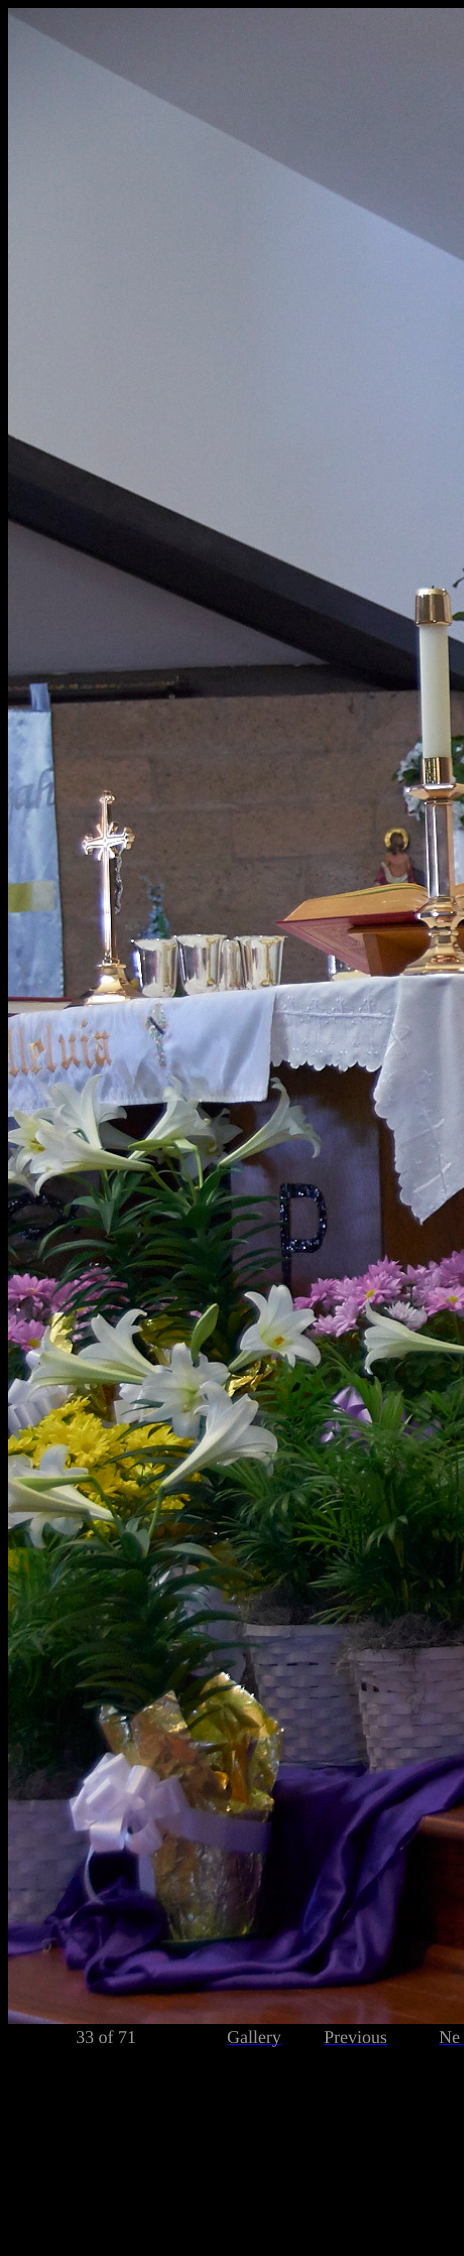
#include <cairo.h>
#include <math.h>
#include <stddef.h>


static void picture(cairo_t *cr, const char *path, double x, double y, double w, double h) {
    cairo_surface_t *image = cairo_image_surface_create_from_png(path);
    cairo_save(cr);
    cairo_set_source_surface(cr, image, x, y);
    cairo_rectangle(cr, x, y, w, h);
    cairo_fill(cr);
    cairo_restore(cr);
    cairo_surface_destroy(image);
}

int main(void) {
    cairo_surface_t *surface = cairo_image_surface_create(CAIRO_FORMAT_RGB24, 464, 2256);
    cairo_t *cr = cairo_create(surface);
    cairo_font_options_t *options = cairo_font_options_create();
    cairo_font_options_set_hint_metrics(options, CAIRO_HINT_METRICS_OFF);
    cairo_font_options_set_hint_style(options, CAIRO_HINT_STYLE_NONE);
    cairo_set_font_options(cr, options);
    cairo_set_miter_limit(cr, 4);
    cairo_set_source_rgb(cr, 0, 0, 0);
    cairo_paint(cr);
    picture(cr, "img1.png", 8, 8, 456, 2016);
    cairo_select_font_face(cr, "Liberation Serif", CAIRO_FONT_SLANT_NORMAL, CAIRO_FONT_WEIGHT_NORMAL);
    cairo_set_font_size(cr, 18);
    cairo_set_source_rgb(cr, 0.6, 0.6, 0.6);
    cairo_move_to(cr, 76, 2043);
    cairo_show_text(cr, "33 of 71");
    cairo_set_source_rgb(cr, 0, 0, 0.933);
    cairo_rectangle(cr, 227, 2044, 54, 1);
    cairo_fill(cr);
    cairo_set_source_rgb(cr, 0.6, 0.6, 0.6);
    cairo_move_to(cr, 227, 2043);
    cairo_show_text(cr, "Gallery");
    cairo_move_to(cr, 324, 2043);
    cairo_show_text(cr, "Previous");
    cairo_set_source_rgb(cr, 0, 0, 0.933);
    cairo_rectangle(cr, 324, 2044, 63, 1);
    cairo_fill(cr);
    cairo_set_source_rgb(cr, 0.6, 0.6, 0.6);
    cairo_move_to(cr, 439, 2043);
    cairo_show_text(cr, "Ne");
    cairo_set_source_rgb(cr, 0, 0, 0.933);
    cairo_rectangle(cr, 439, 2044, 25, 1);
    cairo_fill(cr);
    cairo_surface_write_to_png(surface, "page.png");
    cairo_font_options_destroy(options);
    cairo_destroy(cr);
    cairo_surface_destroy(surface);
    return 0;
}
